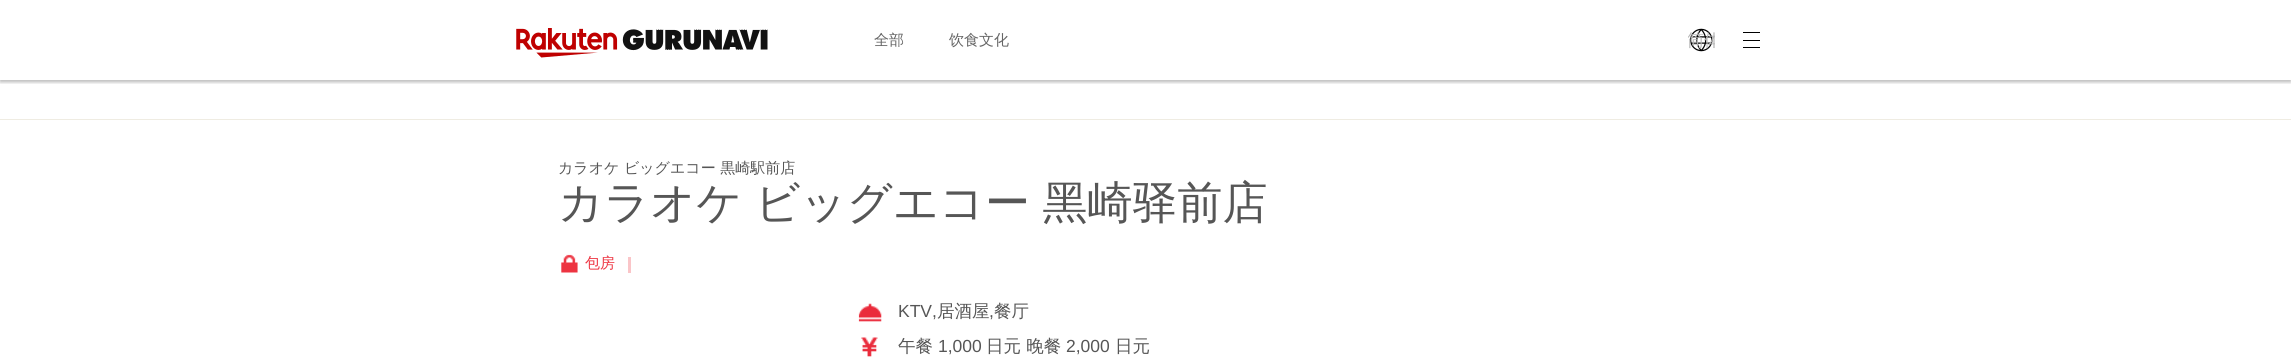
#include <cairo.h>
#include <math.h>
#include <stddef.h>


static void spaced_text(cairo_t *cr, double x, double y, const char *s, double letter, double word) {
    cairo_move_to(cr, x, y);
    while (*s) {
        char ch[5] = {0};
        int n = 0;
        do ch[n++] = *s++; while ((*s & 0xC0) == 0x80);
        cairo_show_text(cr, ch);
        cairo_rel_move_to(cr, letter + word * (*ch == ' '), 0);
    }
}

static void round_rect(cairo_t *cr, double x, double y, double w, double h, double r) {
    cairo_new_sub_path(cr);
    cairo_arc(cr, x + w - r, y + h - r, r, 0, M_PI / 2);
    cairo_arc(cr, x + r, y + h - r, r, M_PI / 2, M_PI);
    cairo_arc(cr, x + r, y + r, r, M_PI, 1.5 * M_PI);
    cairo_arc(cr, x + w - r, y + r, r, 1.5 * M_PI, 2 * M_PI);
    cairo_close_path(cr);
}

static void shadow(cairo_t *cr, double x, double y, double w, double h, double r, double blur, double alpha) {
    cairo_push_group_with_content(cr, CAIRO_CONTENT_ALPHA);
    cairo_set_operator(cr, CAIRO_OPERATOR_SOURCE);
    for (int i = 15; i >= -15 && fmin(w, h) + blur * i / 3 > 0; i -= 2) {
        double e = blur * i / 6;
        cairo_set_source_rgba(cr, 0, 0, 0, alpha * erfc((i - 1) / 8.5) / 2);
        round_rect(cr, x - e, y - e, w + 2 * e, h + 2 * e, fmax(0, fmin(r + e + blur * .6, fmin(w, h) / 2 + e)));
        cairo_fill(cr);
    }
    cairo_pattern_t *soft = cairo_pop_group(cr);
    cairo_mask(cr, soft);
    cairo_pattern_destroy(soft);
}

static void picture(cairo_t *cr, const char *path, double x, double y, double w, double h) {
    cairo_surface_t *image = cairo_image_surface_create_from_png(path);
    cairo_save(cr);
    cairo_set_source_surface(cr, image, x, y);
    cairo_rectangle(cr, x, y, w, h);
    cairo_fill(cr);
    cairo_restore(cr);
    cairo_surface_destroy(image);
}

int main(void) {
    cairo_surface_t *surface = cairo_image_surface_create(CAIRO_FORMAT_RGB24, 2291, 361);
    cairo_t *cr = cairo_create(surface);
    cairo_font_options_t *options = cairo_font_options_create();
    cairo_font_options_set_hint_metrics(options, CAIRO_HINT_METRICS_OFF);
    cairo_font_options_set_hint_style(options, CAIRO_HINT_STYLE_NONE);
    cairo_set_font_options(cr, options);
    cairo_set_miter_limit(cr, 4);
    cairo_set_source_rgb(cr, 1, 1, 1);
    cairo_paint(cr);
    cairo_save(cr);
    cairo_rectangle(cr, 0, 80, 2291, 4);
    cairo_clip(cr);
    cairo_set_source_rgb(cr, 0, 0, 0);
    shadow(cr, 0, 1, 2291, 80, 0, 2, 0.2);
    shadow(cr, 0, 3, 2291, 80, 0, 1, 0.12);
    cairo_restore(cr);
    picture(cr, "img1.png", 516, 28, 252, 30);
    cairo_select_font_face(cr, "WenQuanYi Zen Hei Medium", CAIRO_FONT_SLANT_NORMAL, CAIRO_FONT_WEIGHT_NORMAL);
    cairo_set_font_size(cr, 15);
    cairo_set_source_rgb(cr, 0.4, 0.4, 0.4);
    cairo_move_to(cr, 874, 45);
    cairo_show_text(cr, "全部");
    cairo_move_to(cr, 949, 45);
    cairo_show_text(cr, "饮食文化");
    picture(cr, "img2.png", 1690, 28, 23, 24);
    cairo_save(cr);
    cairo_rectangle(cr, 1688, 31, 27, 19);
    cairo_clip(cr);
    cairo_set_font_size(cr, 17);
    cairo_set_source_rgb(cr, 0.71, 0.71, 0.71);
    cairo_move_to(cr, 1687, 46);
    cairo_show_text(cr, "简体");
    cairo_restore(cr);
    cairo_set_source_rgb(cr, 0, 0, 0);
    cairo_rectangle(cr, 1743, 32, 17, 1);
    cairo_fill(cr);
    cairo_rectangle(cr, 1743, 47, 17, 1);
    cairo_fill(cr);
    cairo_rectangle(cr, 1743, 40, 17, 1);
    cairo_fill(cr);
    cairo_set_source_rgb(cr, 0.937, 0.925, 0.886);
    cairo_rectangle(cr, 0, 119, 2291, 1);
    cairo_fill(cr);
    cairo_set_source_rgb(cr, 0.337, 0.337, 0.337);
    cairo_move_to(cr, 558, 173);
    cairo_show_text(cr, "カラオケ ビッグエコー 黒崎駅前店");
    cairo_set_font_size(cr, 45);
    spaced_text(cr, 558, 218, "カラオケ ビッグエコー 黑崎驿前店", 0, -1);
    picture(cr, "img3.png", 561, 254, 17, 19);
    cairo_set_font_size(cr, 15);
    cairo_set_source_rgb(cr, 0.929, 0.204, 0.255);
    cairo_move_to(cr, 585, 268);
    cairo_show_text(cr, "包房");
    cairo_set_source_rgb(cr, 0.98, 0.773, 0.784);
    cairo_rectangle(cr, 628, 257, 3, 16);
    cairo_fill(cr);
    picture(cr, "img4.png", 858, 303, 24, 19);
    cairo_select_font_face(cr, "Liberation Sans", CAIRO_FONT_SLANT_NORMAL, CAIRO_FONT_WEIGHT_NORMAL);
    cairo_set_font_size(cr, 17.5);
    cairo_set_source_rgb(cr, 0.337, 0.337, 0.337);
    cairo_move_to(cr, 898, 317);
    cairo_show_text(cr, "KTV,");
    cairo_select_font_face(cr, "WenQuanYi Zen Hei Medium", CAIRO_FONT_SLANT_NORMAL, CAIRO_FONT_WEIGHT_NORMAL);
    cairo_move_to(cr, 937, 317);
    cairo_show_text(cr, "居酒屋");
    cairo_select_font_face(cr, "Liberation Sans", CAIRO_FONT_SLANT_NORMAL, CAIRO_FONT_WEIGHT_NORMAL);
    cairo_move_to(cr, 989, 317);
    cairo_show_text(cr, ",");
    cairo_select_font_face(cr, "WenQuanYi Zen Hei Medium", CAIRO_FONT_SLANT_NORMAL, CAIRO_FONT_WEIGHT_NORMAL);
    cairo_move_to(cr, 994, 317);
    cairo_show_text(cr, "餐厅");
    picture(cr, "img5.png", 861, 337, 17, 20);
    cairo_move_to(cr, 898, 352);
    cairo_show_text(cr, "午餐");
    cairo_select_font_face(cr, "Liberation Sans", CAIRO_FONT_SLANT_NORMAL, CAIRO_FONT_WEIGHT_NORMAL);
    cairo_move_to(cr, 938, 352);
    cairo_show_text(cr, "1,000");
    cairo_select_font_face(cr, "WenQuanYi Zen Hei Medium", CAIRO_FONT_SLANT_NORMAL, CAIRO_FONT_WEIGHT_NORMAL);
    cairo_move_to(cr, 986, 352);
    cairo_show_text(cr, "日元 晚餐");
    cairo_select_font_face(cr, "Liberation Sans", CAIRO_FONT_SLANT_NORMAL, CAIRO_FONT_WEIGHT_NORMAL);
    cairo_move_to(cr, 1066, 352);
    cairo_show_text(cr, "2,000");
    cairo_select_font_face(cr, "WenQuanYi Zen Hei Medium", CAIRO_FONT_SLANT_NORMAL, CAIRO_FONT_WEIGHT_NORMAL);
    cairo_move_to(cr, 1115, 352);
    cairo_show_text(cr, "日元");
    cairo_surface_write_to_png(surface, "page.png");
    cairo_font_options_destroy(options);
    cairo_destroy(cr);
    cairo_surface_destroy(surface);
    return 0;
}
